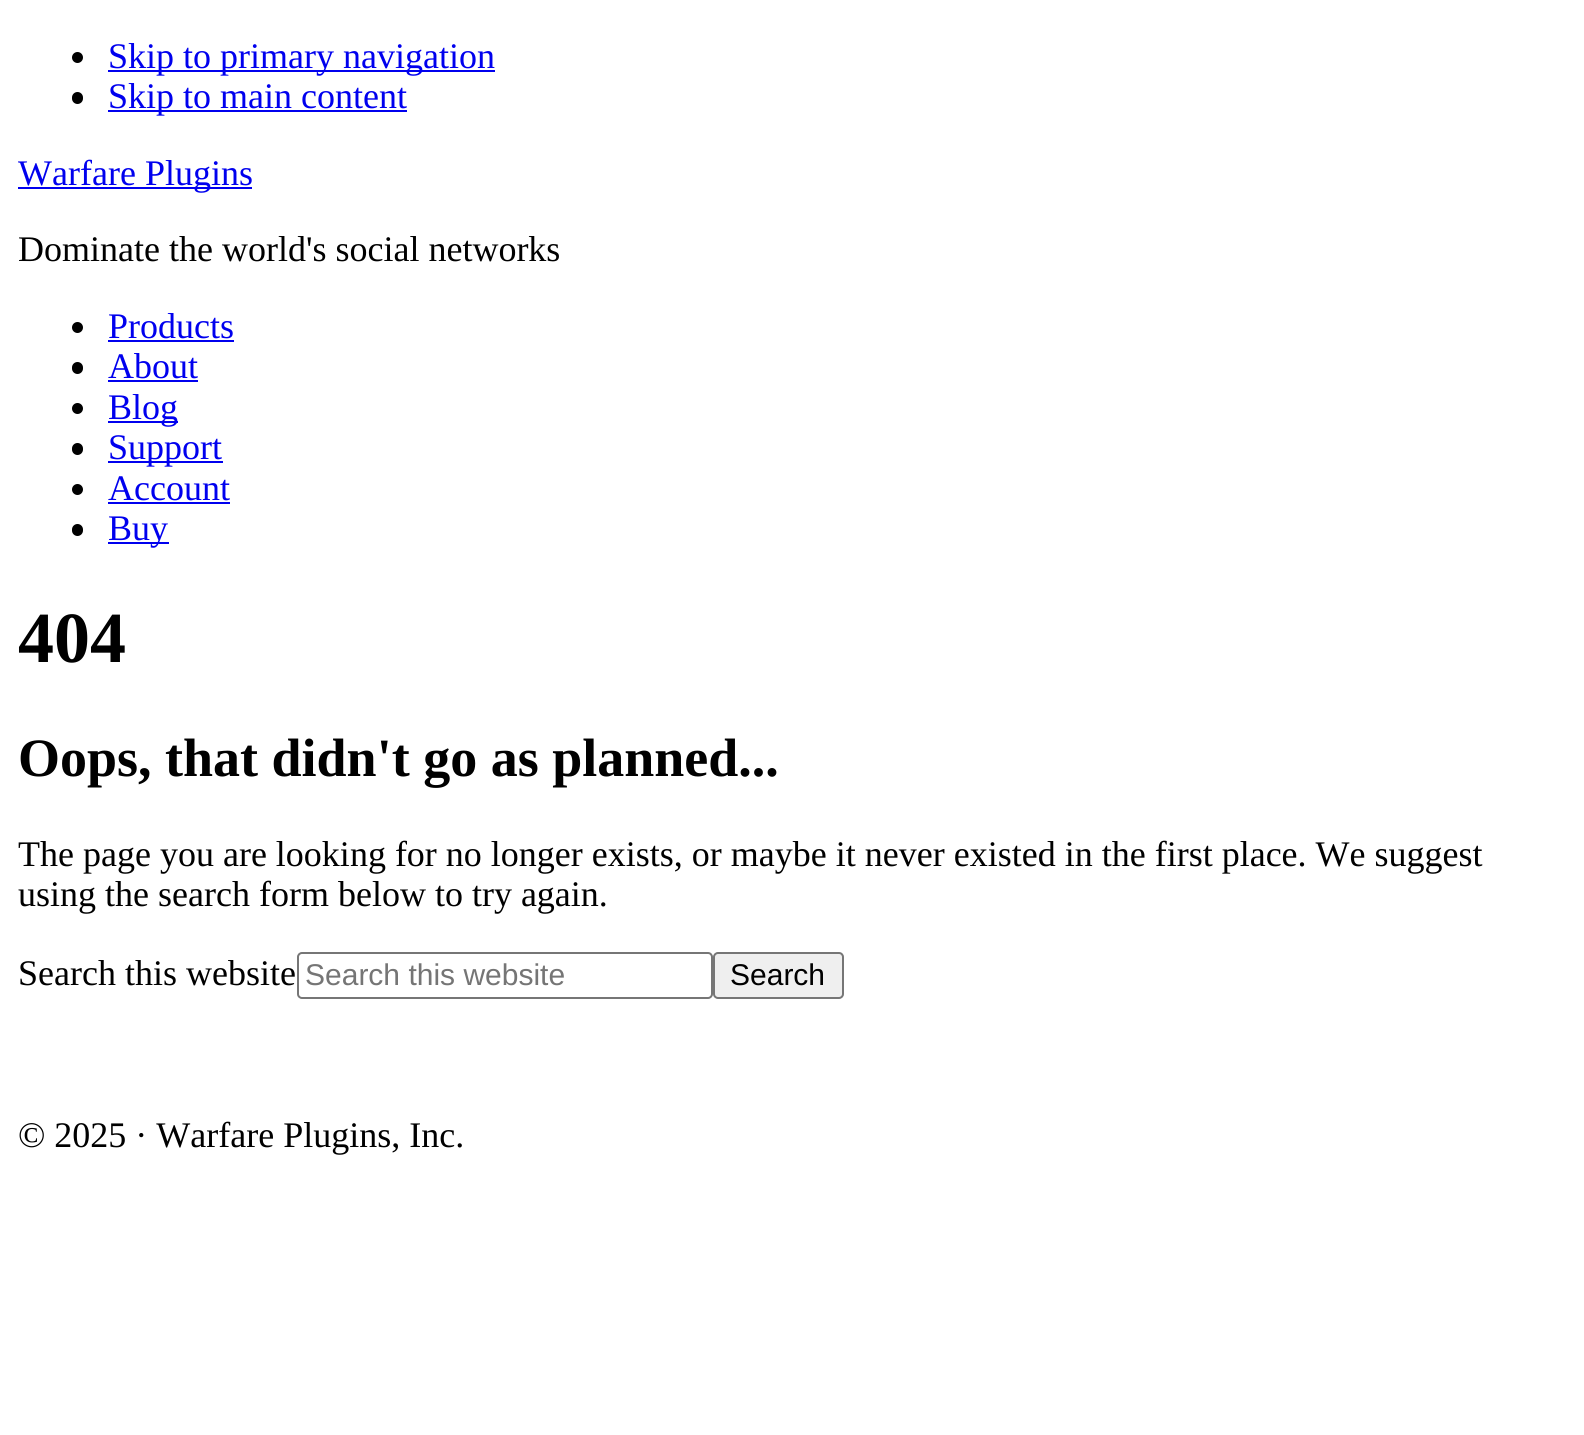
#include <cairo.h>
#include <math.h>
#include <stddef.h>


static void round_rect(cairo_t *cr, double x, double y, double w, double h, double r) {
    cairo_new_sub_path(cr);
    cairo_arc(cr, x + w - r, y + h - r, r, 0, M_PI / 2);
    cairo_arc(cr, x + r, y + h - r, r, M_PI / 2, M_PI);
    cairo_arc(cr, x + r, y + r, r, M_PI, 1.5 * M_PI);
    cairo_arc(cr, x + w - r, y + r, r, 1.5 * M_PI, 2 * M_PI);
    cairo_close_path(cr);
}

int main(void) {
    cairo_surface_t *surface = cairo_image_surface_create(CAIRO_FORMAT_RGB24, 1584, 1435);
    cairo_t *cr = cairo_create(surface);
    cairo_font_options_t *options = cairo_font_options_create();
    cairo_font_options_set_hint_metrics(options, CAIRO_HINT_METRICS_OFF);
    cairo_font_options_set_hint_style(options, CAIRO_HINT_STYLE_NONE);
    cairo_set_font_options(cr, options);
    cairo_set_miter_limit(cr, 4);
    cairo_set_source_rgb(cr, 1, 1, 1);
    cairo_paint(cr);
    cairo_set_source_rgb(cr, 0, 0, 0);
    cairo_arc(cr, 77.5, 57.5, 5.5, 0, 2 * M_PI);
    cairo_fill(cr);
    cairo_set_source_rgb(cr, 0, 0, 0.933);
    cairo_rectangle(cr, 108, 70, 387, 2);
    cairo_fill(cr);
    cairo_select_font_face(cr, "Liberation Serif", CAIRO_FONT_SLANT_NORMAL, CAIRO_FONT_WEIGHT_NORMAL);
    cairo_set_font_size(cr, 36);
    cairo_move_to(cr, 108, 68);
    cairo_show_text(cr, "Skip to primary navigation");
    cairo_set_source_rgb(cr, 0, 0, 0);
    round_rect(cr, 72, 92, 11, 12, 5.5);
    cairo_fill(cr);
    cairo_set_source_rgb(cr, 0, 0, 0.933);
    cairo_rectangle(cr, 108, 110, 299, 2);
    cairo_fill(cr);
    cairo_move_to(cr, 108, 108);
    cairo_show_text(cr, "Skip to main content");
    cairo_rectangle(cr, 18, 187, 234, 2);
    cairo_fill(cr);
    cairo_move_to(cr, 18, 185);
    cairo_show_text(cr, "Warfare Plugins");
    cairo_set_source_rgb(cr, 0, 0, 0);
    cairo_move_to(cr, 18, 261);
    cairo_show_text(cr, "Dominate the world's social networks");
    cairo_new_path(cr);
    cairo_arc(cr, 77.5, 327.5, 5.5, 0, 2 * M_PI);
    cairo_fill(cr);
    cairo_set_source_rgb(cr, 0, 0, 0.933);
    cairo_move_to(cr, 108, 338);
    cairo_show_text(cr, "Products");
    cairo_rectangle(cr, 108, 340, 126, 2);
    cairo_fill(cr);
    cairo_set_source_rgb(cr, 0, 0, 0);
    round_rect(cr, 72, 362, 11, 12, 5.5);
    cairo_fill(cr);
    cairo_set_source_rgb(cr, 0, 0, 0.933);
    cairo_move_to(cr, 108, 378);
    cairo_show_text(cr, "About");
    cairo_rectangle(cr, 108, 380, 90, 2);
    cairo_fill(cr);
    cairo_set_source_rgb(cr, 0, 0, 0);
    cairo_arc(cr, 77.5, 408.5, 5.5, 0, 2 * M_PI);
    cairo_fill(cr);
    cairo_set_source_rgb(cr, 0, 0, 0.933);
    cairo_rectangle(cr, 108, 421, 70, 2);
    cairo_fill(cr);
    cairo_move_to(cr, 108, 419);
    cairo_show_text(cr, "Blog");
    cairo_set_source_rgb(cr, 0, 0, 0);
    round_rect(cr, 72, 443, 11, 12, 5.5);
    cairo_fill(cr);
    cairo_set_source_rgb(cr, 0, 0, 0.933);
    cairo_rectangle(cr, 108, 461, 115, 2);
    cairo_fill(cr);
    cairo_move_to(cr, 108, 459);
    cairo_show_text(cr, "Support");
    cairo_set_source_rgb(cr, 0, 0, 0);
    cairo_new_path(cr);
    cairo_arc(cr, 77.5, 489.5, 5.5, 0, 2 * M_PI);
    cairo_fill(cr);
    cairo_set_source_rgb(cr, 0, 0, 0.933);
    cairo_move_to(cr, 108, 500);
    cairo_show_text(cr, "Account");
    cairo_rectangle(cr, 108, 502, 122, 2);
    cairo_fill(cr);
    cairo_set_source_rgb(cr, 0, 0, 0);
    round_rect(cr, 72, 524, 11, 12, 5.5);
    cairo_fill(cr);
    cairo_set_source_rgb(cr, 0, 0, 0.933);
    cairo_rectangle(cr, 108, 542, 61, 2);
    cairo_fill(cr);
    cairo_move_to(cr, 108, 540);
    cairo_show_text(cr, "Buy");
    cairo_select_font_face(cr, "Liberation Serif", CAIRO_FONT_SLANT_NORMAL, CAIRO_FONT_WEIGHT_BOLD);
    cairo_set_font_size(cr, 72);
    cairo_set_source_rgb(cr, 0, 0, 0);
    cairo_move_to(cr, 18, 662);
    cairo_show_text(cr, "404");
    cairo_set_font_size(cr, 54);
    cairo_move_to(cr, 18, 776);
    cairo_show_text(cr, "Oops, that didn't go as planned...");
    cairo_select_font_face(cr, "Liberation Serif", CAIRO_FONT_SLANT_NORMAL, CAIRO_FONT_WEIGHT_NORMAL);
    cairo_set_font_size(cr, 36);
    cairo_move_to(cr, 18, 866);
    cairo_show_text(cr, "The page you are looking for no longer exists, or maybe it never existed in the first place. We suggest");
    cairo_move_to(cr, 18, 906);
    cairo_show_text(cr, "using the search form below to try again.");
    cairo_move_to(cr, 18, 985);
    cairo_show_text(cr, "Search this website");
    round_rect(cr, 298, 953, 414, 45, 4);
    cairo_set_source_rgb(cr, 0.463, 0.463, 0.463);
    cairo_stroke(cr);
    cairo_select_font_face(cr, "Liberation Sans", CAIRO_FONT_SLANT_NORMAL, CAIRO_FONT_WEIGHT_NORMAL);
    cairo_set_font_size(cr, 30);
    cairo_set_source_rgb(cr, 0.459, 0.459, 0.459);
    cairo_move_to(cr, 305, 985);
    cairo_show_text(cr, "Search this website");
    cairo_set_source_rgb(cr, 0.937, 0.937, 0.937);
    round_rect(cr, 714, 953, 129, 45, 4);
    cairo_fill_preserve(cr);
    cairo_set_source_rgb(cr, 0.463, 0.463, 0.463);
    cairo_stroke(cr);
    cairo_set_source_rgb(cr, 0, 0, 0);
    cairo_move_to(cr, 730, 985);
    cairo_show_text(cr, "Search");
    cairo_select_font_face(cr, "Liberation Serif", CAIRO_FONT_SLANT_NORMAL, CAIRO_FONT_WEIGHT_NORMAL);
    cairo_set_font_size(cr, 36);
    cairo_move_to(cr, 18, 1147);
    cairo_show_text(cr, "© 2025 · Warfare Plugins, Inc.");
    cairo_surface_write_to_png(surface, "page.png");
    cairo_font_options_destroy(options);
    cairo_destroy(cr);
    cairo_surface_destroy(surface);
    return 0;
}
